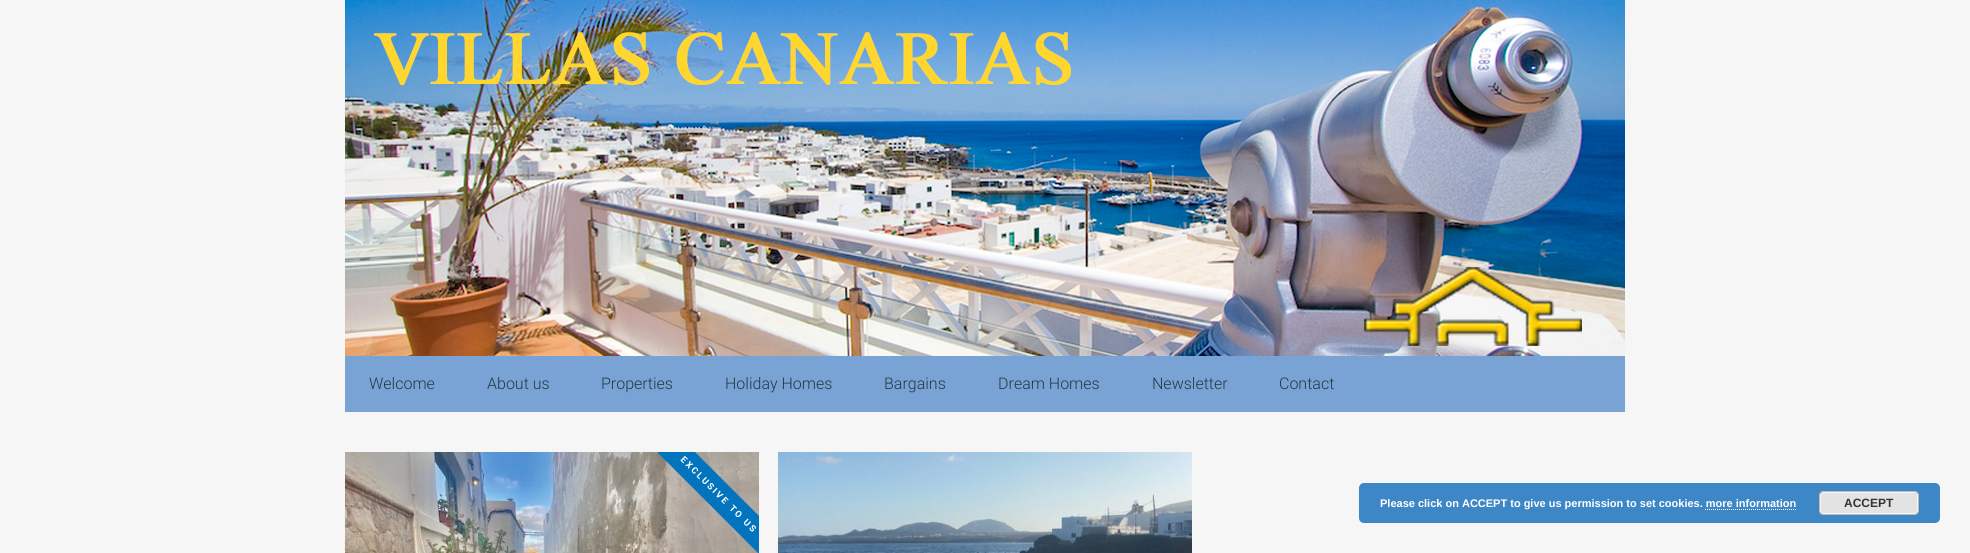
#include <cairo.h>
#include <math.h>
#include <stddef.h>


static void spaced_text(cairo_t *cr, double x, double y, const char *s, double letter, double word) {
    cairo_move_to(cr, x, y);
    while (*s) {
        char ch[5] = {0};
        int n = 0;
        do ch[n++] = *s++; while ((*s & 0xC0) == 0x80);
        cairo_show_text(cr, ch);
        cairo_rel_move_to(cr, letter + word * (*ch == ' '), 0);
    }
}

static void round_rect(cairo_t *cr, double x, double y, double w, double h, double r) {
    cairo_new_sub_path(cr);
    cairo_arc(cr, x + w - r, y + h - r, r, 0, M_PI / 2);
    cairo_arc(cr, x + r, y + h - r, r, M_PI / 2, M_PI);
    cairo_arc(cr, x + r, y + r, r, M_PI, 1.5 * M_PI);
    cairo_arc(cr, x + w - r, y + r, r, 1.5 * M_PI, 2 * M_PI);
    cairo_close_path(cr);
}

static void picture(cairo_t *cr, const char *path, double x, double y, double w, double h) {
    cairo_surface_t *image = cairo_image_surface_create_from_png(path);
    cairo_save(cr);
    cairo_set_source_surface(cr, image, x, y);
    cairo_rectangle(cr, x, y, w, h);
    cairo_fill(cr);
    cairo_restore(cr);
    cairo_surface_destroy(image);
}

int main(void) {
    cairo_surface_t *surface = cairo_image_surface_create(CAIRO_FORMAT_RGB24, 1970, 553);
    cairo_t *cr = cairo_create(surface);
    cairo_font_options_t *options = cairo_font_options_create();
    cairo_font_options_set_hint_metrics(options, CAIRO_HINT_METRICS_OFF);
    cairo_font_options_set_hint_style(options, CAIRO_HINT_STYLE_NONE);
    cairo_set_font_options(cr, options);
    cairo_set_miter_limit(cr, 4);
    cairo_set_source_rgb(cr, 0.961, 0.961, 0.961);
    cairo_paint(cr);
    picture(cr, "img1.png", 345, 0, 1280, 356);
    cairo_set_source_rgb(cr, 0.475, 0.639, 0.835);
    cairo_rectangle(cr, 345, 356, 1280, 56);
    cairo_fill(cr);
    cairo_select_font_face(cr, "Roboto Light", CAIRO_FONT_SLANT_NORMAL, CAIRO_FONT_WEIGHT_NORMAL);
    cairo_set_font_size(cr, 16);
    cairo_set_source_rgb(cr, 0.149, 0.22, 0.267);
    cairo_move_to(cr, 369, 389);
    cairo_show_text(cr, "Welcome");
    cairo_move_to(cr, 487, 389);
    cairo_show_text(cr, "About us");
    cairo_move_to(cr, 601, 389);
    cairo_show_text(cr, "Properties");
    cairo_move_to(cr, 725, 389);
    cairo_show_text(cr, "Holiday Homes");
    cairo_move_to(cr, 884, 389);
    cairo_show_text(cr, "Bargains");
    cairo_move_to(cr, 998, 389);
    cairo_show_text(cr, "Dream Homes");
    cairo_move_to(cr, 1152, 389);
    cairo_show_text(cr, "Newsletter");
    cairo_move_to(cr, 1279, 389);
    cairo_show_text(cr, "Contact");
    picture(cr, "img2.png", 345, 452, 414, 101);
    cairo_save(cr);
    cairo_rectangle(cr, 345, 452, 414, 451);
    cairo_clip(cr);
    cairo_set_source_rgb(cr, 0.008, 0.455, 0.745);
    cairo_new_path(cr);
    cairo_move_to(cr, 672, 429);
    cairo_line_to(cr, 785, 542);
    cairo_line_to(cr, 766, 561);
    cairo_line_to(cr, 653, 448);
    cairo_close_path(cr);
    cairo_fill(cr);
    cairo_restore(cr);
    cairo_select_font_face(cr, "Roboto", CAIRO_FONT_SLANT_NORMAL, CAIRO_FONT_WEIGHT_BOLD);
    cairo_set_font_size(cr, 9);
    cairo_set_source_rgb(cr, 1, 1, 1);
    cairo_save(cr);
    cairo_translate(cr, 680, 460);
    cairo_rotate(cr, 45 * M_PI / 180);
    spaced_text(cr, 0, 0, "EXCLUSIVE TO US", 2, 0);
    cairo_restore(cr);
    picture(cr, "img3.png", 778, 452, 414, 101);
    cairo_set_source_rgb(cr, 0.243, 0.529, 0.776);
    round_rect(cr, 1359, 483, 581, 40, 5);
    cairo_fill(cr);
    cairo_select_font_face(cr, "Liberation Sans", CAIRO_FONT_SLANT_NORMAL, CAIRO_FONT_WEIGHT_BOLD);
    cairo_set_font_size(cr, 11);
    cairo_set_source_rgb(cr, 1, 1, 1);
    cairo_move_to(cr, 1380, 507);
    cairo_show_text(cr, "Please click on ACCEPT to give us permission to set cookies. more information");
    cairo_set_source_rgb(cr, 0.89, 0.89, 0.89);
    round_rect(cr, 1819, 491, 100, 24, 5);
    cairo_fill(cr);
    round_rect(cr, 1820.5, 492.5, 97, 21, 3.5);
    cairo_set_source_rgb(cr, 0.965, 0.965, 0.965);
    cairo_set_line_width(cr, 1);
    cairo_stroke(cr);
    round_rect(cr, 1819.5, 491.5, 99, 23, 4.5);
    cairo_set_source_rgb(cr, 0.733, 0.733, 0.733);
    cairo_stroke(cr);
    cairo_set_font_size(cr, 12);
    cairo_set_source_rgb(cr, 0.2, 0.2, 0.2);
    cairo_move_to(cr, 1844, 507);
    cairo_show_text(cr, "ACCEPT");
    cairo_new_path(cr);
    cairo_move_to(cr, 1705, 509.5);
    cairo_line_to(cr, 1796, 509.5);
    cairo_set_source_rgb(cr, 1, 1, 1);
    cairo_set_dash(cr, (double[]){1, 1}, 2, 0);
    cairo_stroke(cr);
    cairo_surface_write_to_png(surface, "page.png");
    cairo_font_options_destroy(options);
    cairo_destroy(cr);
    cairo_surface_destroy(surface);
    return 0;
}
